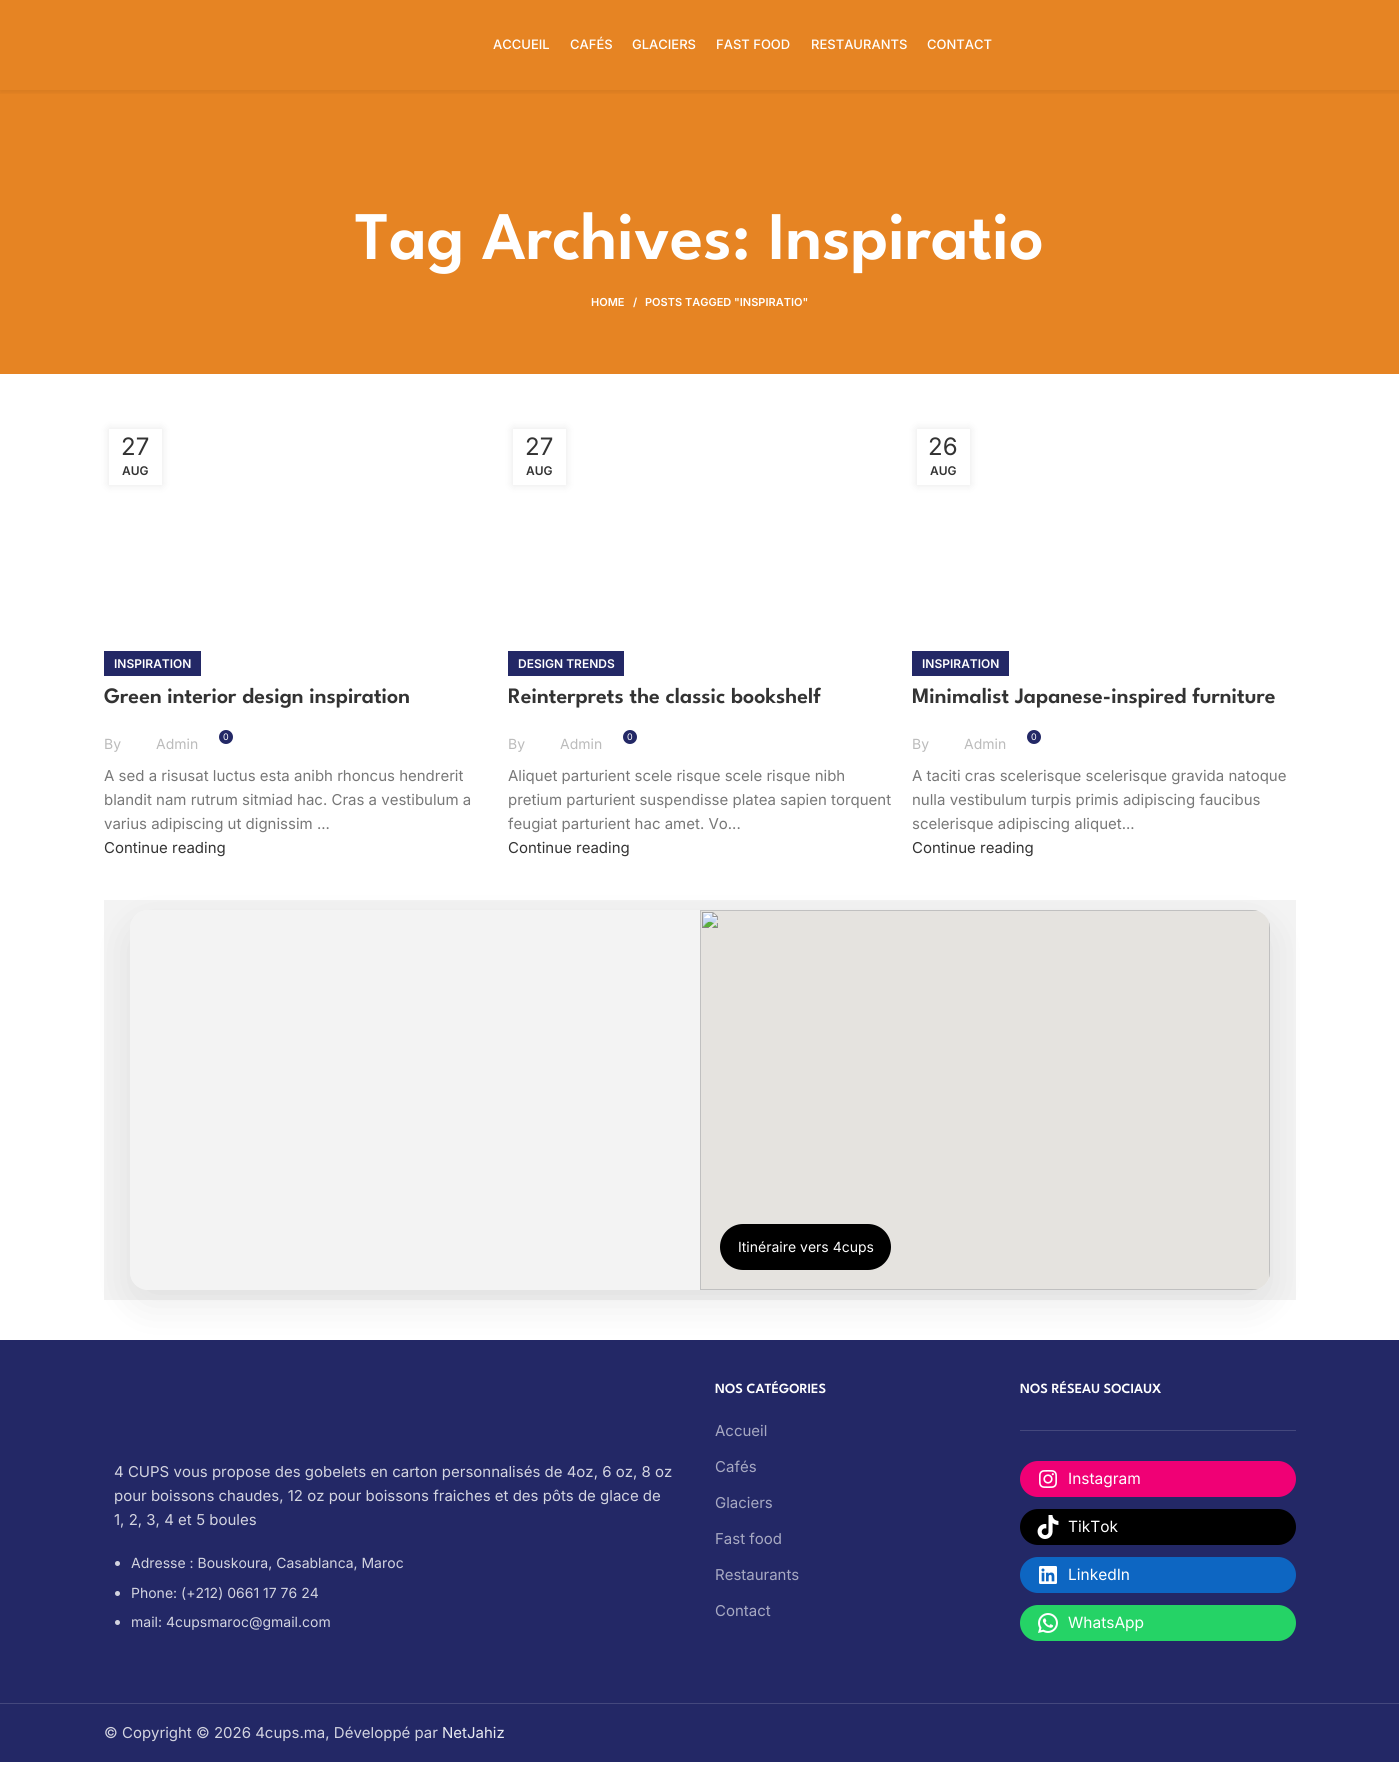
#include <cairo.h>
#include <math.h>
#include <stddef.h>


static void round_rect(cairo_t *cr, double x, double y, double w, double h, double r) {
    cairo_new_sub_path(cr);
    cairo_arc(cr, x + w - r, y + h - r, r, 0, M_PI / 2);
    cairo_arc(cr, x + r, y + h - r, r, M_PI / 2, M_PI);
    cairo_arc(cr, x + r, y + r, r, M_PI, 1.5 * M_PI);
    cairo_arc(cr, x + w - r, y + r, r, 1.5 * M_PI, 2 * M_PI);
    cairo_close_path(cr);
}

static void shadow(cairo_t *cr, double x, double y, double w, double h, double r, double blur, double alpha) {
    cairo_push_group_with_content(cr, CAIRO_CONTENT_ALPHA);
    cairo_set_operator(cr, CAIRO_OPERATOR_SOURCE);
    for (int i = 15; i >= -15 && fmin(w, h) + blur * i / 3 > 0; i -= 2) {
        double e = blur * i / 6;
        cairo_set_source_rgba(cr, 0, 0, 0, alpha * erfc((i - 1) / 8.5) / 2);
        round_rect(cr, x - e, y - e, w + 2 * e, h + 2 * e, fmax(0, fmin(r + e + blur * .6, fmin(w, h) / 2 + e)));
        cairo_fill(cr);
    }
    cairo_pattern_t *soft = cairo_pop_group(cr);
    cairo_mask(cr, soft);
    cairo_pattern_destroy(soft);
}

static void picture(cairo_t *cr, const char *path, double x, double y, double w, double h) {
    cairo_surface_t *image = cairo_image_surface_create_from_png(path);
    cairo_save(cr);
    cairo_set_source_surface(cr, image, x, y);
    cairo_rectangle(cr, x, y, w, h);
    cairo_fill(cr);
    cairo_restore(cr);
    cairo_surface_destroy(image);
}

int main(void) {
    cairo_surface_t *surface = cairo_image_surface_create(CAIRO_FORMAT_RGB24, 1399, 1790);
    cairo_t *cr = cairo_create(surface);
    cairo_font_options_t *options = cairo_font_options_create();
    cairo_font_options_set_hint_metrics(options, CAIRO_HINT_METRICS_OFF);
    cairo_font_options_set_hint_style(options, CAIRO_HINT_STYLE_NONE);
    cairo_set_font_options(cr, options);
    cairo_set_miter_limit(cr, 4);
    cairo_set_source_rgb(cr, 1, 1, 1);
    cairo_paint(cr);
    cairo_set_source_rgb(cr, 0.902, 0.518, 0.137);
    cairo_rectangle(cr, 0, 0, 1399, 374);
    cairo_fill(cr);
    cairo_save(cr);
    cairo_rectangle(cr, 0, 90, 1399, 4);
    cairo_clip(cr);
    cairo_set_source_rgb(cr, 0, 0, 0);
    shadow(cr, 0, 1, 1399, 90, 0, 4, 0.1);
    cairo_restore(cr);
    cairo_select_font_face(cr, "Inter Medium", CAIRO_FONT_SLANT_NORMAL, CAIRO_FONT_WEIGHT_NORMAL);
    cairo_set_font_size(cr, 13);
    cairo_set_source_rgb(cr, 1, 1, 1);
    cairo_move_to(cr, 493, 49);
    cairo_show_text(cr, "ACCUEIL");
    cairo_move_to(cr, 570, 49);
    cairo_show_text(cr, "CAFÉS");
    cairo_move_to(cr, 632, 49);
    cairo_show_text(cr, "GLACIERS");
    cairo_move_to(cr, 716, 49);
    cairo_show_text(cr, "FAST FOOD");
    cairo_move_to(cr, 811, 49);
    cairo_show_text(cr, "RESTAURANTS");
    cairo_move_to(cr, 927, 49);
    cairo_show_text(cr, "CONTACT");
    cairo_select_font_face(cr, "League Spartan SemiBold", CAIRO_FONT_SLANT_NORMAL, CAIRO_FONT_WEIGHT_NORMAL);
    cairo_set_font_size(cr, 68);
    cairo_move_to(cr, 355, 259);
    cairo_show_text(cr, "Tag Archives: Inspiratio");
    cairo_select_font_face(cr, "Inter SemiBold", CAIRO_FONT_SLANT_NORMAL, CAIRO_FONT_WEIGHT_NORMAL);
    cairo_set_font_size(cr, 11);
    cairo_move_to(cr, 591, 306);
    cairo_show_text(cr, "HOME");
    cairo_move_to(cr, 633, 306);
    cairo_show_text(cr, "/");
    cairo_move_to(cr, 645, 306);
    cairo_show_text(cr, "POSTS TAGGED \"INSPIRATIO\"");
    cairo_save(cr);
    cairo_set_fill_rule(cr, CAIRO_FILL_RULE_EVEN_ODD);
    cairo_new_path(cr);
    cairo_move_to(cr, 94, 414);
    cairo_line_to(cr, 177, 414);
    cairo_line_to(cr, 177, 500);
    cairo_line_to(cr, 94, 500);
    cairo_close_path(cr);
    cairo_move_to(cr, 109, 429);
    cairo_line_to(cr, 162, 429);
    cairo_line_to(cr, 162, 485);
    cairo_line_to(cr, 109, 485);
    cairo_close_path(cr);
    cairo_clip(cr);
    cairo_set_source_rgb(cr, 0, 0, 0);
    shadow(cr, 109, 429, 53, 56, 0, 4.5, 0.1);
    cairo_restore(cr);
    cairo_select_font_face(cr, "Inter", CAIRO_FONT_SLANT_NORMAL, CAIRO_FONT_WEIGHT_NORMAL);
    cairo_set_font_size(cr, 24);
    cairo_set_source_rgb(cr, 0.2, 0.2, 0.2);
    cairo_move_to(cr, 121, 455);
    cairo_show_text(cr, "27");
    cairo_select_font_face(cr, "Inter SemiBold", CAIRO_FONT_SLANT_NORMAL, CAIRO_FONT_WEIGHT_NORMAL);
    cairo_set_font_size(cr, 12);
    cairo_move_to(cr, 122, 475);
    cairo_show_text(cr, "AUG");
    cairo_set_source_rgb(cr, 0.137, 0.157, 0.4);
    cairo_rectangle(cr, 104, 651, 97, 25);
    cairo_fill(cr);
    cairo_set_source_rgb(cr, 1, 1, 1);
    cairo_move_to(cr, 114, 668);
    cairo_show_text(cr, "INSPIRATION");
    cairo_select_font_face(cr, "League Spartan SemiBold", CAIRO_FONT_SLANT_NORMAL, CAIRO_FONT_WEIGHT_NORMAL);
    cairo_set_font_size(cr, 22);
    cairo_set_source_rgb(cr, 0.2, 0.2, 0.2);
    cairo_move_to(cr, 104, 703);
    cairo_show_text(cr, "Green interior design inspiration");
    cairo_set_source_rgb(cr, 0.137, 0.157, 0.4);
    cairo_new_path(cr);
    cairo_arc(cr, 226, 737, 7, 0, 2 * M_PI);
    cairo_fill(cr);
    cairo_select_font_face(cr, "Inter", CAIRO_FONT_SLANT_NORMAL, CAIRO_FONT_WEIGHT_NORMAL);
    cairo_set_font_size(cr, 9);
    cairo_set_source_rgb(cr, 1, 1, 1);
    cairo_move_to(cr, 223, 740);
    cairo_show_text(cr, "0");
    cairo_set_font_size(cr, 14);
    cairo_set_source_rgb(cr, 0.733, 0.733, 0.733);
    cairo_move_to(cr, 104, 749);
    cairo_show_text(cr, "By");
    cairo_move_to(cr, 156, 749);
    cairo_show_text(cr, "Admin");
    cairo_set_font_size(cr, 15);
    cairo_set_source_rgb(cr, 0.467, 0.467, 0.467);
    cairo_move_to(cr, 104, 781);
    cairo_show_text(cr, "A sed a risusat luctus esta anibh rhoncus hendrerit");
    cairo_move_to(cr, 104, 805);
    cairo_show_text(cr, "blandit nam rutrum sitmiad hac. Cras a vestibulum a");
    cairo_move_to(cr, 104, 829);
    cairo_show_text(cr, "varius adipiscing ut dignissim ...");
    cairo_set_source_rgb(cr, 0.2, 0.2, 0.2);
    cairo_move_to(cr, 104, 853);
    cairo_show_text(cr, "Continue reading");
    cairo_save(cr);
    cairo_set_fill_rule(cr, CAIRO_FILL_RULE_EVEN_ODD);
    cairo_new_path(cr);
    cairo_move_to(cr, 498, 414);
    cairo_line_to(cr, 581, 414);
    cairo_line_to(cr, 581, 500);
    cairo_line_to(cr, 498, 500);
    cairo_close_path(cr);
    cairo_move_to(cr, 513, 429);
    cairo_line_to(cr, 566, 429);
    cairo_line_to(cr, 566, 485);
    cairo_line_to(cr, 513, 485);
    cairo_close_path(cr);
    cairo_clip(cr);
    cairo_set_source_rgb(cr, 0, 0, 0);
    shadow(cr, 513, 429, 53, 56, 0, 4.5, 0.1);
    cairo_restore(cr);
    cairo_set_font_size(cr, 24);
    cairo_move_to(cr, 525, 455);
    cairo_show_text(cr, "27");
    cairo_select_font_face(cr, "Inter SemiBold", CAIRO_FONT_SLANT_NORMAL, CAIRO_FONT_WEIGHT_NORMAL);
    cairo_set_font_size(cr, 12);
    cairo_move_to(cr, 526, 475);
    cairo_show_text(cr, "AUG");
    cairo_set_source_rgb(cr, 0.137, 0.157, 0.4);
    cairo_rectangle(cr, 508, 651, 116, 25);
    cairo_fill(cr);
    cairo_set_source_rgb(cr, 1, 1, 1);
    cairo_move_to(cr, 518, 668);
    cairo_show_text(cr, "DESIGN TRENDS");
    cairo_select_font_face(cr, "League Spartan SemiBold", CAIRO_FONT_SLANT_NORMAL, CAIRO_FONT_WEIGHT_NORMAL);
    cairo_set_font_size(cr, 22);
    cairo_set_source_rgb(cr, 0.2, 0.2, 0.2);
    cairo_move_to(cr, 508, 703);
    cairo_show_text(cr, "Reinterprets the classic bookshelf");
    cairo_set_source_rgb(cr, 0.137, 0.157, 0.4);
    cairo_new_path(cr);
    cairo_arc(cr, 630, 737, 7, 0, 2 * M_PI);
    cairo_fill(cr);
    cairo_select_font_face(cr, "Inter", CAIRO_FONT_SLANT_NORMAL, CAIRO_FONT_WEIGHT_NORMAL);
    cairo_set_font_size(cr, 9);
    cairo_set_source_rgb(cr, 1, 1, 1);
    cairo_move_to(cr, 627, 740);
    cairo_show_text(cr, "0");
    cairo_set_font_size(cr, 14);
    cairo_set_source_rgb(cr, 0.733, 0.733, 0.733);
    cairo_move_to(cr, 508, 749);
    cairo_show_text(cr, "By");
    cairo_move_to(cr, 560, 749);
    cairo_show_text(cr, "Admin");
    cairo_set_font_size(cr, 15);
    cairo_set_source_rgb(cr, 0.467, 0.467, 0.467);
    cairo_move_to(cr, 508, 781);
    cairo_show_text(cr, "Aliquet parturient scele risque scele risque nibh");
    cairo_move_to(cr, 508, 805);
    cairo_show_text(cr, "pretium parturient suspendisse platea sapien torquent");
    cairo_move_to(cr, 508, 829);
    cairo_show_text(cr, "feugiat parturient hac amet. Vo...");
    cairo_set_source_rgb(cr, 0.2, 0.2, 0.2);
    cairo_move_to(cr, 508, 853);
    cairo_show_text(cr, "Continue reading");
    cairo_save(cr);
    cairo_set_fill_rule(cr, CAIRO_FILL_RULE_EVEN_ODD);
    cairo_new_path(cr);
    cairo_move_to(cr, 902, 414);
    cairo_line_to(cr, 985, 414);
    cairo_line_to(cr, 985, 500);
    cairo_line_to(cr, 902, 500);
    cairo_close_path(cr);
    cairo_move_to(cr, 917, 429);
    cairo_line_to(cr, 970, 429);
    cairo_line_to(cr, 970, 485);
    cairo_line_to(cr, 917, 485);
    cairo_close_path(cr);
    cairo_clip(cr);
    cairo_set_source_rgb(cr, 0, 0, 0);
    shadow(cr, 917, 429, 53, 56, 0, 4.5, 0.1);
    cairo_restore(cr);
    cairo_set_font_size(cr, 24);
    cairo_move_to(cr, 928, 455);
    cairo_show_text(cr, "26");
    cairo_select_font_face(cr, "Inter SemiBold", CAIRO_FONT_SLANT_NORMAL, CAIRO_FONT_WEIGHT_NORMAL);
    cairo_set_font_size(cr, 12);
    cairo_move_to(cr, 930, 475);
    cairo_show_text(cr, "AUG");
    cairo_set_source_rgb(cr, 0.137, 0.157, 0.4);
    cairo_rectangle(cr, 912, 651, 97, 25);
    cairo_fill(cr);
    cairo_set_source_rgb(cr, 1, 1, 1);
    cairo_move_to(cr, 922, 668);
    cairo_show_text(cr, "INSPIRATION");
    cairo_select_font_face(cr, "League Spartan SemiBold", CAIRO_FONT_SLANT_NORMAL, CAIRO_FONT_WEIGHT_NORMAL);
    cairo_set_font_size(cr, 22);
    cairo_set_source_rgb(cr, 0.2, 0.2, 0.2);
    cairo_move_to(cr, 912, 703);
    cairo_show_text(cr, "Minimalist Japanese-inspired furniture");
    cairo_set_source_rgb(cr, 0.137, 0.157, 0.4);
    cairo_new_path(cr);
    cairo_arc(cr, 1034, 737, 7, 0, 2 * M_PI);
    cairo_fill(cr);
    cairo_select_font_face(cr, "Inter", CAIRO_FONT_SLANT_NORMAL, CAIRO_FONT_WEIGHT_NORMAL);
    cairo_set_font_size(cr, 9);
    cairo_set_source_rgb(cr, 1, 1, 1);
    cairo_move_to(cr, 1031, 740);
    cairo_show_text(cr, "0");
    cairo_set_font_size(cr, 14);
    cairo_set_source_rgb(cr, 0.733, 0.733, 0.733);
    cairo_move_to(cr, 912, 749);
    cairo_show_text(cr, "By");
    cairo_move_to(cr, 964, 749);
    cairo_show_text(cr, "Admin");
    cairo_set_font_size(cr, 15);
    cairo_set_source_rgb(cr, 0.467, 0.467, 0.467);
    cairo_move_to(cr, 912, 781);
    cairo_show_text(cr, "A taciti cras scelerisque scelerisque gravida natoque");
    cairo_move_to(cr, 912, 805);
    cairo_show_text(cr, "nulla vestibulum turpis primis adipiscing faucibus");
    cairo_move_to(cr, 912, 829);
    cairo_show_text(cr, "scelerisque adipiscing aliquet...");
    cairo_set_source_rgb(cr, 0.2, 0.2, 0.2);
    cairo_move_to(cr, 912, 853);
    cairo_show_text(cr, "Continue reading");
    cairo_set_source_rgb(cr, 0.953, 0.953, 0.953);
    cairo_rectangle(cr, 104, 900, 1192, 400);
    cairo_fill(cr);
    cairo_set_source_rgb(cr, 0.137, 0.157, 0.4);
    cairo_rectangle(cr, 0, 1340, 1399, 422);
    cairo_fill(cr);
    cairo_save(cr);
    cairo_set_fill_rule(cr, CAIRO_FILL_RULE_EVEN_ODD);
    cairo_new_path(cr);
    cairo_move_to(cr, 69, 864);
    cairo_line_to(cr, 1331, 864);
    cairo_line_to(cr, 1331, 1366);
    cairo_line_to(cr, 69, 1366);
    cairo_close_path(cr);
    cairo_move_to(cr, 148, 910);
    cairo_line_to(cr, 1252, 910);
    cairo_curve_to(cr, 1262, 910, 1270, 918, 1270, 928);
    cairo_line_to(cr, 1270, 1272);
    cairo_curve_to(cr, 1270, 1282, 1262, 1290, 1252, 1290);
    cairo_line_to(cr, 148, 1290);
    cairo_curve_to(cr, 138, 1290, 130, 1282, 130, 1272);
    cairo_line_to(cr, 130, 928);
    cairo_curve_to(cr, 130, 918, 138, 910, 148, 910);
    cairo_close_path(cr);
    cairo_clip(cr);
    cairo_set_source_rgb(cr, 0, 0, 0);
    shadow(cr, 130, 925, 1140, 380, 18, 20, 0.08);
    cairo_restore(cr);
    picture(cr, "img1.png", 700, 910, 570, 380);
    cairo_set_source_rgb(cr, 0, 0, 0);
    round_rect(cr, 720, 1224, 171, 46, 23);
    cairo_fill(cr);
    cairo_set_font_size(cr, 14);
    cairo_set_source_rgb(cr, 1, 1, 1);
    cairo_move_to(cr, 738, 1252);
    cairo_show_text(cr, "Itinéraire vers 4cups");
    cairo_set_font_size(cr, 15);
    cairo_set_source_rgb(cr, 0.827, 0.831, 0.878);
    cairo_move_to(cr, 114, 1477);
    cairo_show_text(cr, "4 CUPS vous propose des gobelets en carton personnalisés de 4oz, 6 oz, 8 oz");
    cairo_move_to(cr, 114, 1501);
    cairo_show_text(cr, "pour boissons chaudes, 12 oz pour boissons fraiches et des pôts de glace de");
    cairo_move_to(cr, 114, 1525);
    cairo_show_text(cr, "1, 2, 3, 4 et 5 boules");
    cairo_new_path(cr);
    cairo_arc(cr, 117.5, 1563.5, 2.5, 0, 2 * M_PI);
    cairo_fill(cr);
    cairo_set_font_size(cr, 14);
    cairo_move_to(cr, 131, 1568);
    cairo_show_text(cr, "Adresse : Bouskoura, Casablanca, Maroc");
    cairo_new_path(cr);
    cairo_arc(cr, 117.5, 1593.5, 2.5, 0, 2 * M_PI);
    cairo_fill(cr);
    cairo_move_to(cr, 131, 1598);
    cairo_show_text(cr, "Phone: (+212) 0661 17 76 24");
    cairo_new_path(cr);
    cairo_arc(cr, 117.5, 1622.5, 2.5, 0, 2 * M_PI);
    cairo_fill(cr);
    cairo_move_to(cr, 131, 1627);
    cairo_show_text(cr, "mail: 4cupsmaroc@gmail.com");
    cairo_select_font_face(cr, "League Spartan SemiBold", CAIRO_FONT_SLANT_NORMAL, CAIRO_FONT_WEIGHT_NORMAL);
    cairo_set_source_rgb(cr, 1, 1, 1);
    cairo_move_to(cr, 715, 1393);
    cairo_show_text(cr, "NOS CATÉGORIES");
    cairo_select_font_face(cr, "Inter", CAIRO_FONT_SLANT_NORMAL, CAIRO_FONT_WEIGHT_NORMAL);
    cairo_set_font_size(cr, 15);
    cairo_set_source_rgb(cr, 0.655, 0.663, 0.761);
    cairo_move_to(cr, 715, 1436);
    cairo_show_text(cr, "Accueil");
    cairo_move_to(cr, 715, 1472);
    cairo_show_text(cr, "Cafés");
    cairo_move_to(cr, 715, 1508);
    cairo_show_text(cr, "Glaciers");
    cairo_move_to(cr, 715, 1544);
    cairo_show_text(cr, "Fast food");
    cairo_move_to(cr, 715, 1580);
    cairo_show_text(cr, "Restaurants");
    cairo_move_to(cr, 715, 1616);
    cairo_show_text(cr, "Contact");
    cairo_set_source_rgb(cr, 0.267, 0.282, 0.49);
    cairo_rectangle(cr, 1020, 1430, 276, 1);
    cairo_fill(cr);
    cairo_select_font_face(cr, "League Spartan SemiBold", CAIRO_FONT_SLANT_NORMAL, CAIRO_FONT_WEIGHT_NORMAL);
    cairo_set_font_size(cr, 14);
    cairo_set_source_rgb(cr, 1, 1, 1);
    cairo_move_to(cr, 1020, 1393);
    cairo_show_text(cr, "NOS RÉSEAU SOCIAUX");
    cairo_set_source_rgb(cr, 0.941, 0, 0.459);
    round_rect(cr, 1020, 1461, 276, 36, 18);
    cairo_fill(cr);
    picture(cr, "img2.png", 1039, 1470, 18, 18);
    cairo_select_font_face(cr, "Inter", CAIRO_FONT_SLANT_NORMAL, CAIRO_FONT_WEIGHT_NORMAL);
    cairo_set_font_size(cr, 15.5);
    cairo_set_source_rgb(cr, 1, 1, 1);
    cairo_move_to(cr, 1068, 1484);
    cairo_show_text(cr, "Instagram");
    cairo_set_source_rgb(cr, 0, 0, 0);
    round_rect(cr, 1020, 1509, 276, 36, 18);
    cairo_fill(cr);
    picture(cr, "img3.png", 1037, 1515, 22, 24);
    cairo_set_source_rgb(cr, 1, 1, 1);
    cairo_move_to(cr, 1068, 1532);
    cairo_show_text(cr, "TikTok");
    cairo_set_source_rgb(cr, 0.051, 0.4, 0.761);
    round_rect(cr, 1020, 1557, 276, 36, 18);
    cairo_fill(cr);
    picture(cr, "img4.png", 1039, 1566, 18, 18);
    cairo_set_source_rgb(cr, 1, 1, 1);
    cairo_move_to(cr, 1068, 1580);
    cairo_show_text(cr, "LinkedIn");
    cairo_set_source_rgb(cr, 0.145, 0.827, 0.4);
    round_rect(cr, 1020, 1605, 276, 36, 18);
    cairo_fill(cr);
    picture(cr, "img5.png", 1038, 1613, 20, 20);
    cairo_set_source_rgb(cr, 1, 1, 1);
    cairo_move_to(cr, 1068, 1628);
    cairo_show_text(cr, "WhatsApp");
    cairo_set_source_rgb(cr, 0.267, 0.282, 0.49);
    cairo_rectangle(cr, 0, 1703, 1399, 1);
    cairo_fill(cr);
    cairo_set_font_size(cr, 15);
    cairo_set_source_rgb(cr, 0.827, 0.831, 0.878);
    cairo_move_to(cr, 104, 1738);
    cairo_show_text(cr, "© Copyright © 2026 4cups.ma, Développé par");
    cairo_set_source_rgb(cr, 0.914, 0.918, 0.941);
    cairo_move_to(cr, 442, 1738);
    cairo_show_text(cr, "NetJahiz");
    cairo_surface_write_to_png(surface, "page.png");
    cairo_font_options_destroy(options);
    cairo_destroy(cr);
    cairo_surface_destroy(surface);
    return 0;
}
